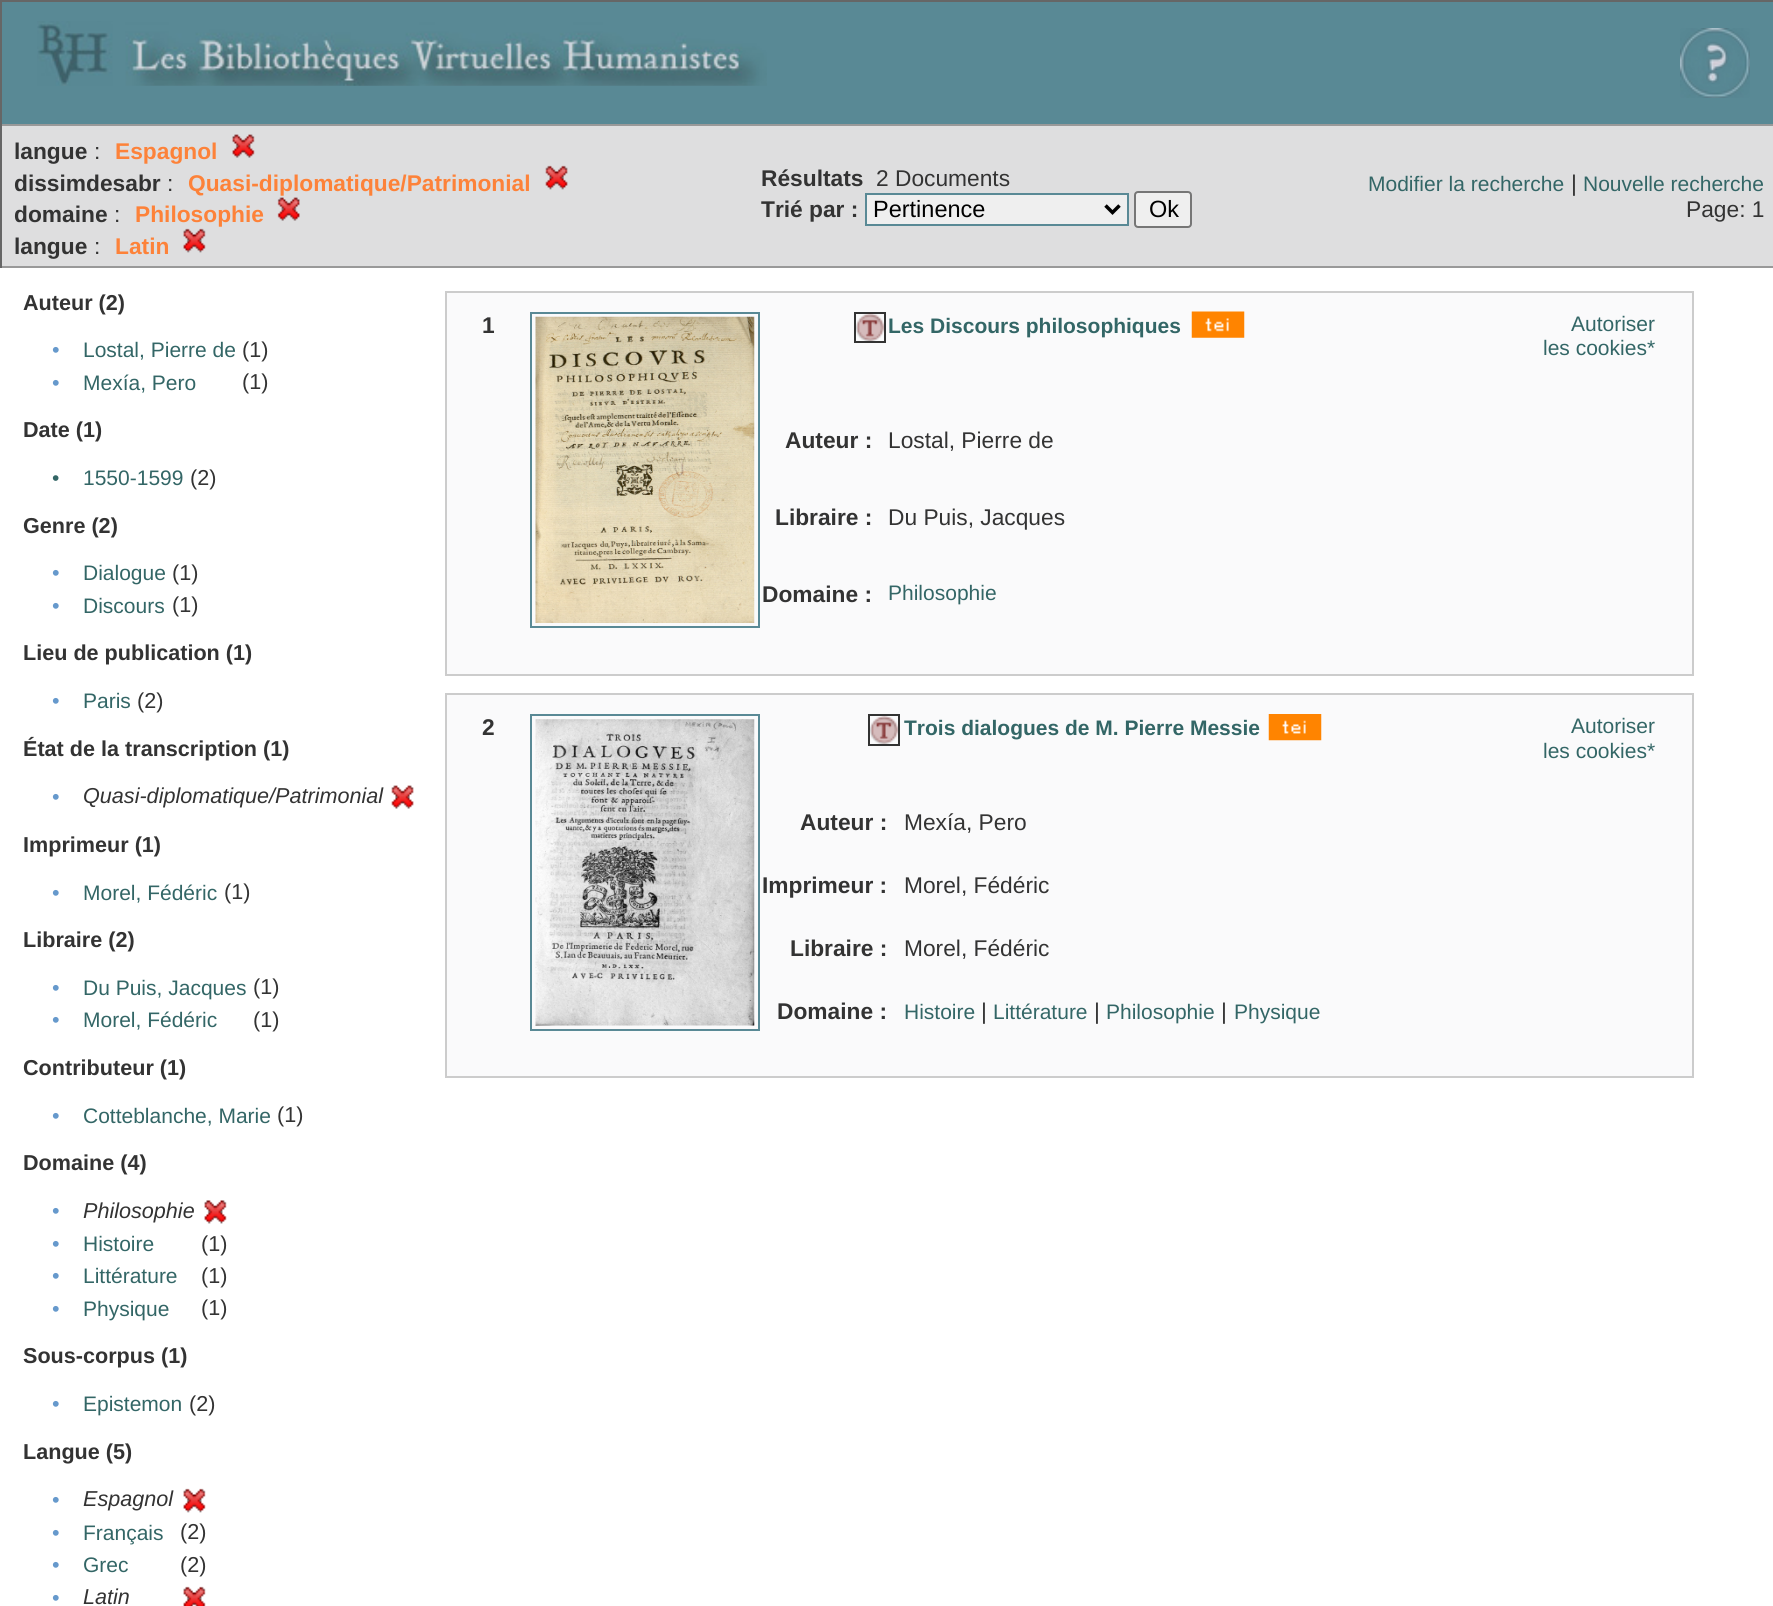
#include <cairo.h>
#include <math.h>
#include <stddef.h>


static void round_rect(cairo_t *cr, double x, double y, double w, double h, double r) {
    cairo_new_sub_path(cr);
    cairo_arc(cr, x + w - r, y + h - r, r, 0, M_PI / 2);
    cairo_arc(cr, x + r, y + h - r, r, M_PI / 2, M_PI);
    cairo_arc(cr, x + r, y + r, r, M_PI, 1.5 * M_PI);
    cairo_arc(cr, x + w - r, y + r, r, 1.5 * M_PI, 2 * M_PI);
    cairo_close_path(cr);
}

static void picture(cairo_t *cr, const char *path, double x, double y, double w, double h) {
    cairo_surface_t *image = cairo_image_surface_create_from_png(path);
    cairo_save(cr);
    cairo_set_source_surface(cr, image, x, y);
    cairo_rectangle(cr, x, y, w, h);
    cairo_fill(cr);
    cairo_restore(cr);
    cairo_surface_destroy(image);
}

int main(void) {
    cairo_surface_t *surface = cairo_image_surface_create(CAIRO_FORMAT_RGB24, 1773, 1606);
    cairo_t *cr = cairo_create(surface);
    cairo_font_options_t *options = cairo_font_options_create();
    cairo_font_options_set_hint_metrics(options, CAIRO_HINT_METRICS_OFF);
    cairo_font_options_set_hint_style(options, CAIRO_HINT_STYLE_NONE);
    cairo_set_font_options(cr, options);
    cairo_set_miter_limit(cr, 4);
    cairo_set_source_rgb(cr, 0.349, 0.537, 0.584);
    cairo_paint(cr);
    cairo_set_source_rgb(cr, 0.4, 0.4, 0.4);
    cairo_rectangle(cr, 0, 0, 1773, 2);
    cairo_fill(cr);
    cairo_rectangle(cr, 0, 0, 2, 124);
    cairo_fill(cr);
    picture(cr, "img1.png", 37, 21, 730, 65);
    picture(cr, "img2.png", 1680, 28, 70, 70);
    cairo_set_source_rgb(cr, 0.871, 0.871, 0.875);
    cairo_rectangle(cr, 2, 126, 1771, 140);
    cairo_fill(cr);
    cairo_set_source_rgb(cr, 0.6, 0.6, 0.6);
    cairo_rectangle(cr, 0, 124, 1773, 2);
    cairo_fill(cr);
    cairo_rectangle(cr, 0, 266, 1773, 2);
    cairo_fill(cr);
    cairo_set_source_rgb(cr, 0.4, 0.4, 0.4);
    cairo_rectangle(cr, 0, 124, 2, 144);
    cairo_fill(cr);
    cairo_select_font_face(cr, "Liberation Sans", CAIRO_FONT_SLANT_NORMAL, CAIRO_FONT_WEIGHT_BOLD);
    cairo_set_font_size(cr, 22.75);
    cairo_set_source_rgb(cr, 0.2, 0.2, 0.2);
    cairo_move_to(cr, 14, 159);
    cairo_show_text(cr, "langue");
    cairo_select_font_face(cr, "Liberation Sans", CAIRO_FONT_SLANT_NORMAL, CAIRO_FONT_WEIGHT_NORMAL);
    cairo_move_to(cr, 94, 159);
    cairo_show_text(cr, ":");
    cairo_select_font_face(cr, "Liberation Sans", CAIRO_FONT_SLANT_NORMAL, CAIRO_FONT_WEIGHT_BOLD);
    cairo_set_source_rgb(cr, 0.992, 0.51, 0.224);
    cairo_move_to(cr, 115, 159);
    cairo_show_text(cr, "Espagnol");
    picture(cr, "img3.png", 232, 134, 23, 24);
    cairo_set_source_rgb(cr, 0.2, 0.2, 0.2);
    cairo_move_to(cr, 14, 191);
    cairo_show_text(cr, "dissimdesabr");
    cairo_select_font_face(cr, "Liberation Sans", CAIRO_FONT_SLANT_NORMAL, CAIRO_FONT_WEIGHT_NORMAL);
    cairo_move_to(cr, 167, 191);
    cairo_show_text(cr, ":");
    cairo_select_font_face(cr, "Liberation Sans", CAIRO_FONT_SLANT_NORMAL, CAIRO_FONT_WEIGHT_BOLD);
    cairo_set_source_rgb(cr, 0.992, 0.51, 0.224);
    cairo_move_to(cr, 188, 191);
    cairo_show_text(cr, "Quasi-diplomatique/Patrimonial");
    picture(cr, "img4.png", 545, 165, 23, 25);
    cairo_set_source_rgb(cr, 0.2, 0.2, 0.2);
    cairo_move_to(cr, 14, 222);
    cairo_show_text(cr, "domaine");
    cairo_select_font_face(cr, "Liberation Sans", CAIRO_FONT_SLANT_NORMAL, CAIRO_FONT_WEIGHT_NORMAL);
    cairo_move_to(cr, 114, 222);
    cairo_show_text(cr, ":");
    cairo_select_font_face(cr, "Liberation Sans", CAIRO_FONT_SLANT_NORMAL, CAIRO_FONT_WEIGHT_BOLD);
    cairo_set_source_rgb(cr, 0.992, 0.51, 0.224);
    cairo_move_to(cr, 135, 222);
    cairo_show_text(cr, "Philosophie");
    picture(cr, "img5.png", 277, 197, 23, 24);
    cairo_set_source_rgb(cr, 0.2, 0.2, 0.2);
    cairo_move_to(cr, 14, 254);
    cairo_show_text(cr, "langue");
    cairo_select_font_face(cr, "Liberation Sans", CAIRO_FONT_SLANT_NORMAL, CAIRO_FONT_WEIGHT_NORMAL);
    cairo_move_to(cr, 94, 254);
    cairo_show_text(cr, ":");
    cairo_select_font_face(cr, "Liberation Sans", CAIRO_FONT_SLANT_NORMAL, CAIRO_FONT_WEIGHT_BOLD);
    cairo_set_source_rgb(cr, 0.992, 0.51, 0.224);
    cairo_move_to(cr, 115, 254);
    cairo_show_text(cr, "Latin");
    picture(cr, "img6.png", 183, 228, 23, 25);
    cairo_set_source_rgb(cr, 0.2, 0.2, 0.2);
    cairo_move_to(cr, 761, 186);
    cairo_show_text(cr, "Résultats");
    cairo_select_font_face(cr, "Liberation Sans", CAIRO_FONT_SLANT_NORMAL, CAIRO_FONT_WEIGHT_NORMAL);
    cairo_move_to(cr, 876, 186);
    cairo_show_text(cr, "2 Documents");
    cairo_select_font_face(cr, "Liberation Sans", CAIRO_FONT_SLANT_NORMAL, CAIRO_FONT_WEIGHT_BOLD);
    cairo_move_to(cr, 761, 217);
    cairo_show_text(cr, "Trié par :");
    cairo_set_source_rgb(cr, 0.937, 0.937, 0.937);
    cairo_rectangle(cr, 866, 194, 262, 31);
    cairo_fill_preserve(cr);
    cairo_set_source_rgb(cr, 0.349, 0.537, 0.584);
    cairo_stroke(cr);
    cairo_new_path(cr);
    cairo_move_to(cr, 1105.5, 205.5);
    cairo_line_to(cr, 1112.5, 212.5);
    cairo_line_to(cr, 1119.5, 205.5);
    cairo_set_source_rgb(cr, 0, 0, 0);
    cairo_set_line_width(cr, 3.5);
    cairo_stroke(cr);
    cairo_select_font_face(cr, "Liberation Sans", CAIRO_FONT_SLANT_NORMAL, CAIRO_FONT_WEIGHT_NORMAL);
    cairo_set_font_size(cr, 23.5);
    cairo_move_to(cr, 873, 217);
    cairo_show_text(cr, "Pertinence");
    cairo_set_source_rgb(cr, 0.937, 0.937, 0.937);
    round_rect(cr, 1135, 192, 56, 35, 3);
    cairo_fill_preserve(cr);
    cairo_set_source_rgb(cr, 0.463, 0.463, 0.463);
    cairo_set_line_width(cr, 2);
    cairo_stroke(cr);
    cairo_set_source_rgb(cr, 0, 0, 0);
    cairo_move_to(cr, 1149, 217);
    cairo_show_text(cr, "Ok");
    cairo_set_font_size(cr, 21);
    cairo_set_source_rgb(cr, 0.2, 0.4, 0.4);
    cairo_move_to(cr, 1368, 191);
    cairo_show_text(cr, "Modifier la recherche");
    cairo_set_font_size(cr, 22.75);
    cairo_set_source_rgb(cr, 0.2, 0.2, 0.2);
    cairo_move_to(cr, 1571, 191);
    cairo_show_text(cr, "|");
    cairo_set_font_size(cr, 21);
    cairo_set_source_rgb(cr, 0.2, 0.4, 0.4);
    cairo_move_to(cr, 1583, 191);
    cairo_show_text(cr, "Nouvelle recherche");
    cairo_set_font_size(cr, 22.75);
    cairo_set_source_rgb(cr, 0.2, 0.2, 0.2);
    cairo_move_to(cr, 1686, 217);
    cairo_show_text(cr, "Page: 1");
    cairo_set_source_rgb(cr, 1, 1, 1);
    cairo_rectangle(cr, 0, 268, 1773, 1338);
    cairo_fill(cr);
    cairo_select_font_face(cr, "Liberation Sans", CAIRO_FONT_SLANT_NORMAL, CAIRO_FONT_WEIGHT_BOLD);
    cairo_set_font_size(cr, 21.6);
    cairo_set_source_rgb(cr, 0.2, 0.2, 0.2);
    cairo_move_to(cr, 23, 310);
    cairo_show_text(cr, "Auteur (2)");
    cairo_select_font_face(cr, "Liberation Sans", CAIRO_FONT_SLANT_NORMAL, CAIRO_FONT_WEIGHT_NORMAL);
    cairo_set_source_rgb(cr, 0.4, 0.6, 0.8);
    cairo_move_to(cr, 52, 357);
    cairo_show_text(cr, "•");
    cairo_set_font_size(cr, 21);
    cairo_set_source_rgb(cr, 0.2, 0.4, 0.4);
    cairo_move_to(cr, 83, 357);
    cairo_show_text(cr, "Lostal, Pierre de");
    cairo_set_font_size(cr, 21.6);
    cairo_set_source_rgb(cr, 0.2, 0.2, 0.2);
    cairo_move_to(cr, 242, 357);
    cairo_show_text(cr, "(1)");
    cairo_set_source_rgb(cr, 0.4, 0.6, 0.8);
    cairo_move_to(cr, 52, 390);
    cairo_show_text(cr, "•");
    cairo_set_font_size(cr, 21);
    cairo_set_source_rgb(cr, 0.2, 0.4, 0.4);
    cairo_move_to(cr, 83, 390);
    cairo_show_text(cr, "Mexía, Pero");
    cairo_set_font_size(cr, 21.6);
    cairo_set_source_rgb(cr, 0.2, 0.2, 0.2);
    cairo_move_to(cr, 242, 389);
    cairo_show_text(cr, "(1)");
    cairo_select_font_face(cr, "Liberation Sans", CAIRO_FONT_SLANT_NORMAL, CAIRO_FONT_WEIGHT_BOLD);
    cairo_move_to(cr, 23, 437);
    cairo_show_text(cr, "Date (1)");
    cairo_select_font_face(cr, "Liberation Sans", CAIRO_FONT_SLANT_NORMAL, CAIRO_FONT_WEIGHT_NORMAL);
    cairo_set_font_size(cr, 21);
    cairo_set_source_rgb(cr, 0.2, 0.4, 0.4);
    cairo_move_to(cr, 52, 485);
    cairo_show_text(cr, "•");
    cairo_move_to(cr, 83, 485);
    cairo_show_text(cr, "1550-1599");
    cairo_set_font_size(cr, 21.6);
    cairo_set_source_rgb(cr, 0.2, 0.2, 0.2);
    cairo_move_to(cr, 190, 485);
    cairo_show_text(cr, "(2)");
    cairo_select_font_face(cr, "Liberation Sans", CAIRO_FONT_SLANT_NORMAL, CAIRO_FONT_WEIGHT_BOLD);
    cairo_move_to(cr, 23, 533);
    cairo_show_text(cr, "Genre (2)");
    cairo_select_font_face(cr, "Liberation Sans", CAIRO_FONT_SLANT_NORMAL, CAIRO_FONT_WEIGHT_NORMAL);
    cairo_set_source_rgb(cr, 0.4, 0.6, 0.8);
    cairo_move_to(cr, 52, 580);
    cairo_show_text(cr, "•");
    cairo_set_font_size(cr, 21);
    cairo_set_source_rgb(cr, 0.2, 0.4, 0.4);
    cairo_move_to(cr, 83, 580);
    cairo_show_text(cr, "Dialogue");
    cairo_set_font_size(cr, 21.6);
    cairo_set_source_rgb(cr, 0.2, 0.2, 0.2);
    cairo_move_to(cr, 172, 580);
    cairo_show_text(cr, "(1)");
    cairo_set_source_rgb(cr, 0.4, 0.6, 0.8);
    cairo_move_to(cr, 52, 613);
    cairo_show_text(cr, "•");
    cairo_set_font_size(cr, 21);
    cairo_set_source_rgb(cr, 0.2, 0.4, 0.4);
    cairo_move_to(cr, 83, 613);
    cairo_show_text(cr, "Discours");
    cairo_set_font_size(cr, 21.6);
    cairo_set_source_rgb(cr, 0.2, 0.2, 0.2);
    cairo_move_to(cr, 172, 612);
    cairo_show_text(cr, "(1)");
    cairo_select_font_face(cr, "Liberation Sans", CAIRO_FONT_SLANT_NORMAL, CAIRO_FONT_WEIGHT_BOLD);
    cairo_move_to(cr, 23, 660);
    cairo_show_text(cr, "Lieu de publication (1)");
    cairo_select_font_face(cr, "Liberation Sans", CAIRO_FONT_SLANT_NORMAL, CAIRO_FONT_WEIGHT_NORMAL);
    cairo_set_source_rgb(cr, 0.4, 0.6, 0.8);
    cairo_move_to(cr, 52, 708);
    cairo_show_text(cr, "•");
    cairo_set_font_size(cr, 21);
    cairo_set_source_rgb(cr, 0.2, 0.4, 0.4);
    cairo_move_to(cr, 83, 708);
    cairo_show_text(cr, "Paris");
    cairo_set_font_size(cr, 21.6);
    cairo_set_source_rgb(cr, 0.2, 0.2, 0.2);
    cairo_move_to(cr, 137, 708);
    cairo_show_text(cr, "(2)");
    cairo_select_font_face(cr, "Liberation Sans", CAIRO_FONT_SLANT_NORMAL, CAIRO_FONT_WEIGHT_BOLD);
    cairo_move_to(cr, 23, 756);
    cairo_show_text(cr, "État de la transcription (1)");
    cairo_select_font_face(cr, "Liberation Sans", CAIRO_FONT_SLANT_NORMAL, CAIRO_FONT_WEIGHT_NORMAL);
    cairo_set_source_rgb(cr, 0.4, 0.6, 0.8);
    cairo_move_to(cr, 52, 804);
    cairo_show_text(cr, "•");
    cairo_select_font_face(cr, "Liberation Sans", CAIRO_FONT_SLANT_ITALIC, CAIRO_FONT_WEIGHT_NORMAL);
    cairo_set_source_rgb(cr, 0.2, 0.2, 0.2);
    cairo_move_to(cr, 83, 803);
    cairo_show_text(cr, "Quasi-diplomatique/Patrimonial");
    picture(cr, "img7.png", 391, 785, 23, 24);
    cairo_select_font_face(cr, "Liberation Sans", CAIRO_FONT_SLANT_NORMAL, CAIRO_FONT_WEIGHT_BOLD);
    cairo_move_to(cr, 23, 852);
    cairo_show_text(cr, "Imprimeur (1)");
    cairo_select_font_face(cr, "Liberation Sans", CAIRO_FONT_SLANT_NORMAL, CAIRO_FONT_WEIGHT_NORMAL);
    cairo_set_source_rgb(cr, 0.4, 0.6, 0.8);
    cairo_move_to(cr, 52, 900);
    cairo_show_text(cr, "•");
    cairo_set_font_size(cr, 21);
    cairo_set_source_rgb(cr, 0.2, 0.4, 0.4);
    cairo_move_to(cr, 83, 900);
    cairo_show_text(cr, "Morel, Fédéric");
    cairo_set_font_size(cr, 21.6);
    cairo_set_source_rgb(cr, 0.2, 0.2, 0.2);
    cairo_move_to(cr, 224, 899);
    cairo_show_text(cr, "(1)");
    cairo_select_font_face(cr, "Liberation Sans", CAIRO_FONT_SLANT_NORMAL, CAIRO_FONT_WEIGHT_BOLD);
    cairo_move_to(cr, 23, 947);
    cairo_show_text(cr, "Libraire (2)");
    cairo_select_font_face(cr, "Liberation Sans", CAIRO_FONT_SLANT_NORMAL, CAIRO_FONT_WEIGHT_NORMAL);
    cairo_set_source_rgb(cr, 0.4, 0.6, 0.8);
    cairo_move_to(cr, 52, 995);
    cairo_show_text(cr, "•");
    cairo_set_font_size(cr, 21);
    cairo_set_source_rgb(cr, 0.2, 0.4, 0.4);
    cairo_move_to(cr, 83, 995);
    cairo_show_text(cr, "Du Puis, Jacques");
    cairo_set_font_size(cr, 21.6);
    cairo_set_source_rgb(cr, 0.2, 0.2, 0.2);
    cairo_move_to(cr, 253, 994);
    cairo_show_text(cr, "(1)");
    cairo_set_source_rgb(cr, 0.4, 0.6, 0.8);
    cairo_move_to(cr, 52, 1027);
    cairo_show_text(cr, "•");
    cairo_set_font_size(cr, 21);
    cairo_set_source_rgb(cr, 0.2, 0.4, 0.4);
    cairo_move_to(cr, 83, 1027);
    cairo_show_text(cr, "Morel, Fédéric");
    cairo_set_font_size(cr, 21.6);
    cairo_set_source_rgb(cr, 0.2, 0.2, 0.2);
    cairo_move_to(cr, 253, 1027);
    cairo_show_text(cr, "(1)");
    cairo_select_font_face(cr, "Liberation Sans", CAIRO_FONT_SLANT_NORMAL, CAIRO_FONT_WEIGHT_BOLD);
    cairo_move_to(cr, 23, 1075);
    cairo_show_text(cr, "Contributeur (1)");
    cairo_select_font_face(cr, "Liberation Sans", CAIRO_FONT_SLANT_NORMAL, CAIRO_FONT_WEIGHT_NORMAL);
    cairo_set_source_rgb(cr, 0.4, 0.6, 0.8);
    cairo_move_to(cr, 52, 1123);
    cairo_show_text(cr, "•");
    cairo_set_font_size(cr, 21);
    cairo_set_source_rgb(cr, 0.2, 0.4, 0.4);
    cairo_move_to(cr, 83, 1123);
    cairo_show_text(cr, "Cotteblanche, Marie");
    cairo_set_font_size(cr, 21.6);
    cairo_set_source_rgb(cr, 0.2, 0.2, 0.2);
    cairo_move_to(cr, 277, 1122);
    cairo_show_text(cr, "(1)");
    cairo_select_font_face(cr, "Liberation Sans", CAIRO_FONT_SLANT_NORMAL, CAIRO_FONT_WEIGHT_BOLD);
    cairo_move_to(cr, 23, 1170);
    cairo_show_text(cr, "Domaine (4)");
    cairo_select_font_face(cr, "Liberation Sans", CAIRO_FONT_SLANT_NORMAL, CAIRO_FONT_WEIGHT_NORMAL);
    cairo_set_source_rgb(cr, 0.4, 0.6, 0.8);
    cairo_move_to(cr, 52, 1218);
    cairo_show_text(cr, "•");
    cairo_select_font_face(cr, "Liberation Sans", CAIRO_FONT_SLANT_ITALIC, CAIRO_FONT_WEIGHT_NORMAL);
    cairo_set_source_rgb(cr, 0.2, 0.2, 0.2);
    cairo_move_to(cr, 83, 1218);
    cairo_show_text(cr, "Philosophie");
    picture(cr, "img8.png", 204, 1200, 23, 24);
    cairo_select_font_face(cr, "Liberation Sans", CAIRO_FONT_SLANT_NORMAL, CAIRO_FONT_WEIGHT_NORMAL);
    cairo_set_source_rgb(cr, 0.4, 0.6, 0.8);
    cairo_move_to(cr, 52, 1251);
    cairo_show_text(cr, "•");
    cairo_set_font_size(cr, 21);
    cairo_set_source_rgb(cr, 0.2, 0.4, 0.4);
    cairo_move_to(cr, 83, 1251);
    cairo_show_text(cr, "Histoire");
    cairo_set_font_size(cr, 21.6);
    cairo_set_source_rgb(cr, 0.2, 0.2, 0.2);
    cairo_move_to(cr, 201, 1251);
    cairo_show_text(cr, "(1)");
    cairo_set_source_rgb(cr, 0.4, 0.6, 0.8);
    cairo_move_to(cr, 52, 1283);
    cairo_show_text(cr, "•");
    cairo_set_font_size(cr, 21);
    cairo_set_source_rgb(cr, 0.2, 0.4, 0.4);
    cairo_move_to(cr, 83, 1283);
    cairo_show_text(cr, "Littérature");
    cairo_set_font_size(cr, 21.6);
    cairo_set_source_rgb(cr, 0.2, 0.2, 0.2);
    cairo_move_to(cr, 201, 1283);
    cairo_show_text(cr, "(1)");
    cairo_set_source_rgb(cr, 0.4, 0.6, 0.8);
    cairo_move_to(cr, 52, 1316);
    cairo_show_text(cr, "•");
    cairo_set_font_size(cr, 21);
    cairo_set_source_rgb(cr, 0.2, 0.4, 0.4);
    cairo_move_to(cr, 83, 1316);
    cairo_show_text(cr, "Physique");
    cairo_set_font_size(cr, 21.6);
    cairo_set_source_rgb(cr, 0.2, 0.2, 0.2);
    cairo_move_to(cr, 201, 1315);
    cairo_show_text(cr, "(1)");
    cairo_select_font_face(cr, "Liberation Sans", CAIRO_FONT_SLANT_NORMAL, CAIRO_FONT_WEIGHT_BOLD);
    cairo_move_to(cr, 23, 1363);
    cairo_show_text(cr, "Sous-corpus (1)");
    cairo_select_font_face(cr, "Liberation Sans", CAIRO_FONT_SLANT_NORMAL, CAIRO_FONT_WEIGHT_NORMAL);
    cairo_set_source_rgb(cr, 0.4, 0.6, 0.8);
    cairo_move_to(cr, 52, 1411);
    cairo_show_text(cr, "•");
    cairo_set_font_size(cr, 21);
    cairo_set_source_rgb(cr, 0.2, 0.4, 0.4);
    cairo_move_to(cr, 83, 1411);
    cairo_show_text(cr, "Epistemon");
    cairo_set_font_size(cr, 21.6);
    cairo_set_source_rgb(cr, 0.2, 0.2, 0.2);
    cairo_move_to(cr, 189, 1411);
    cairo_show_text(cr, "(2)");
    cairo_select_font_face(cr, "Liberation Sans", CAIRO_FONT_SLANT_NORMAL, CAIRO_FONT_WEIGHT_BOLD);
    cairo_move_to(cr, 23, 1459);
    cairo_show_text(cr, "Langue (5)");
    cairo_select_font_face(cr, "Liberation Sans", CAIRO_FONT_SLANT_NORMAL, CAIRO_FONT_WEIGHT_NORMAL);
    cairo_set_source_rgb(cr, 0.4, 0.6, 0.8);
    cairo_move_to(cr, 52, 1507);
    cairo_show_text(cr, "•");
    cairo_select_font_face(cr, "Liberation Sans", CAIRO_FONT_SLANT_ITALIC, CAIRO_FONT_WEIGHT_NORMAL);
    cairo_set_source_rgb(cr, 0.2, 0.2, 0.2);
    cairo_move_to(cr, 83, 1506);
    cairo_show_text(cr, "Espagnol");
    picture(cr, "img9.png", 183, 1488, 23, 25);
    cairo_select_font_face(cr, "Liberation Sans", CAIRO_FONT_SLANT_NORMAL, CAIRO_FONT_WEIGHT_NORMAL);
    cairo_set_source_rgb(cr, 0.4, 0.6, 0.8);
    cairo_move_to(cr, 52, 1540);
    cairo_show_text(cr, "•");
    cairo_set_font_size(cr, 21);
    cairo_set_source_rgb(cr, 0.2, 0.4, 0.4);
    cairo_move_to(cr, 83, 1540);
    cairo_show_text(cr, "Français");
    cairo_set_font_size(cr, 21.6);
    cairo_set_source_rgb(cr, 0.2, 0.2, 0.2);
    cairo_move_to(cr, 180, 1539);
    cairo_show_text(cr, "(2)");
    cairo_set_source_rgb(cr, 0.4, 0.6, 0.8);
    cairo_move_to(cr, 52, 1572);
    cairo_show_text(cr, "•");
    cairo_set_font_size(cr, 21);
    cairo_set_source_rgb(cr, 0.2, 0.4, 0.4);
    cairo_move_to(cr, 83, 1572);
    cairo_show_text(cr, "Grec");
    cairo_set_font_size(cr, 21.6);
    cairo_set_source_rgb(cr, 0.2, 0.2, 0.2);
    cairo_move_to(cr, 180, 1572);
    cairo_show_text(cr, "(2)");
    cairo_set_source_rgb(cr, 0.4, 0.6, 0.8);
    cairo_move_to(cr, 52, 1605);
    cairo_show_text(cr, "•");
    cairo_select_font_face(cr, "Liberation Sans", CAIRO_FONT_SLANT_ITALIC, CAIRO_FONT_WEIGHT_NORMAL);
    cairo_set_source_rgb(cr, 0.2, 0.2, 0.2);
    cairo_move_to(cr, 83, 1604);
    cairo_show_text(cr, "Latin");
    picture(cr, "img10.png", 183, 1586, 23, 20);
    cairo_set_source_rgb(cr, 0.98, 0.98, 0.984);
    cairo_rectangle(cr, 446, 292, 1247, 383);
    cairo_fill_preserve(cr);
    cairo_set_source_rgb(cr, 0.8, 0.8, 0.8);
    cairo_stroke(cr);
    cairo_select_font_face(cr, "Liberation Sans", CAIRO_FONT_SLANT_NORMAL, CAIRO_FONT_WEIGHT_BOLD);
    cairo_set_font_size(cr, 22.75);
    cairo_set_source_rgb(cr, 0.2, 0.2, 0.2);
    cairo_move_to(cr, 482, 333);
    cairo_show_text(cr, "1");
    cairo_rectangle(cr, 531, 313, 228, 314);
    cairo_set_source_rgb(cr, 0.349, 0.537, 0.584);
    cairo_stroke(cr);
    picture(cr, "img11.png", 535, 316, 220, 307);
    cairo_rectangle(cr, 855, 313, 30, 29);
    cairo_set_source_rgb(cr, 0.2, 0.2, 0.2);
    cairo_stroke(cr);
    picture(cr, "img12.png", 856, 313, 28, 28);
    cairo_set_font_size(cr, 21);
    cairo_set_source_rgb(cr, 0.2, 0.4, 0.4);
    cairo_move_to(cr, 888, 333);
    cairo_show_text(cr, "Les Discours philosophiques");
    picture(cr, "img13.png", 1191, 311, 54, 27);
    cairo_select_font_face(cr, "Liberation Sans", CAIRO_FONT_SLANT_NORMAL, CAIRO_FONT_WEIGHT_NORMAL);
    cairo_move_to(cr, 1571, 331);
    cairo_show_text(cr, "Autoriser");
    cairo_move_to(cr, 1543, 355);
    cairo_show_text(cr, "les cookies*");
    cairo_select_font_face(cr, "Liberation Sans", CAIRO_FONT_SLANT_NORMAL, CAIRO_FONT_WEIGHT_BOLD);
    cairo_set_font_size(cr, 22.75);
    cairo_set_source_rgb(cr, 0.2, 0.2, 0.2);
    cairo_move_to(cr, 785, 448);
    cairo_show_text(cr, "Auteur :");
    cairo_select_font_face(cr, "Liberation Sans", CAIRO_FONT_SLANT_NORMAL, CAIRO_FONT_WEIGHT_NORMAL);
    cairo_move_to(cr, 888, 448);
    cairo_show_text(cr, "Lostal, Pierre de");
    cairo_select_font_face(cr, "Liberation Sans", CAIRO_FONT_SLANT_NORMAL, CAIRO_FONT_WEIGHT_BOLD);
    cairo_move_to(cr, 775, 525);
    cairo_show_text(cr, "Libraire :");
    cairo_select_font_face(cr, "Liberation Sans", CAIRO_FONT_SLANT_NORMAL, CAIRO_FONT_WEIGHT_NORMAL);
    cairo_move_to(cr, 888, 525);
    cairo_show_text(cr, "Du Puis, Jacques");
    cairo_select_font_face(cr, "Liberation Sans", CAIRO_FONT_SLANT_NORMAL, CAIRO_FONT_WEIGHT_BOLD);
    cairo_move_to(cr, 762, 602);
    cairo_show_text(cr, "Domaine :");
    cairo_select_font_face(cr, "Liberation Sans", CAIRO_FONT_SLANT_NORMAL, CAIRO_FONT_WEIGHT_NORMAL);
    cairo_set_font_size(cr, 21);
    cairo_set_source_rgb(cr, 0.2, 0.4, 0.4);
    cairo_move_to(cr, 888, 600);
    cairo_show_text(cr, "Philosophie");
    cairo_set_source_rgb(cr, 0.98, 0.98, 0.984);
    cairo_rectangle(cr, 446, 694, 1247, 383);
    cairo_fill_preserve(cr);
    cairo_set_source_rgb(cr, 0.8, 0.8, 0.8);
    cairo_stroke(cr);
    cairo_select_font_face(cr, "Liberation Sans", CAIRO_FONT_SLANT_NORMAL, CAIRO_FONT_WEIGHT_BOLD);
    cairo_set_font_size(cr, 22.75);
    cairo_set_source_rgb(cr, 0.2, 0.2, 0.2);
    cairo_move_to(cr, 482, 735);
    cairo_show_text(cr, "2");
    cairo_rectangle(cr, 531, 715, 228, 315);
    cairo_set_source_rgb(cr, 0.349, 0.537, 0.584);
    cairo_stroke(cr);
    picture(cr, "img14.png", 535, 719, 220, 307);
    cairo_rectangle(cr, 869, 715, 30, 30);
    cairo_set_source_rgb(cr, 0.2, 0.2, 0.2);
    cairo_stroke(cr);
    picture(cr, "img15.png", 870, 716, 28, 28);
    cairo_set_font_size(cr, 21);
    cairo_set_source_rgb(cr, 0.2, 0.4, 0.4);
    cairo_move_to(cr, 904, 735);
    cairo_show_text(cr, "Trois dialogues de M. Pierre Messie");
    picture(cr, "img16.png", 1268, 714, 54, 27);
    cairo_select_font_face(cr, "Liberation Sans", CAIRO_FONT_SLANT_NORMAL, CAIRO_FONT_WEIGHT_NORMAL);
    cairo_move_to(cr, 1571, 733);
    cairo_show_text(cr, "Autoriser");
    cairo_move_to(cr, 1543, 758);
    cairo_show_text(cr, "les cookies*");
    cairo_select_font_face(cr, "Liberation Sans", CAIRO_FONT_SLANT_NORMAL, CAIRO_FONT_WEIGHT_BOLD);
    cairo_set_font_size(cr, 22.75);
    cairo_set_source_rgb(cr, 0.2, 0.2, 0.2);
    cairo_move_to(cr, 800, 830);
    cairo_show_text(cr, "Auteur :");
    cairo_select_font_face(cr, "Liberation Sans", CAIRO_FONT_SLANT_NORMAL, CAIRO_FONT_WEIGHT_NORMAL);
    cairo_move_to(cr, 904, 830);
    cairo_show_text(cr, "Mexía, Pero");
    cairo_select_font_face(cr, "Liberation Sans", CAIRO_FONT_SLANT_NORMAL, CAIRO_FONT_WEIGHT_BOLD);
    cairo_move_to(cr, 762, 893);
    cairo_show_text(cr, "Imprimeur :");
    cairo_select_font_face(cr, "Liberation Sans", CAIRO_FONT_SLANT_NORMAL, CAIRO_FONT_WEIGHT_NORMAL);
    cairo_move_to(cr, 904, 893);
    cairo_show_text(cr, "Morel, Fédéric");
    cairo_select_font_face(cr, "Liberation Sans", CAIRO_FONT_SLANT_NORMAL, CAIRO_FONT_WEIGHT_BOLD);
    cairo_move_to(cr, 790, 956);
    cairo_show_text(cr, "Libraire :");
    cairo_select_font_face(cr, "Liberation Sans", CAIRO_FONT_SLANT_NORMAL, CAIRO_FONT_WEIGHT_NORMAL);
    cairo_move_to(cr, 904, 956);
    cairo_show_text(cr, "Morel, Fédéric");
    cairo_select_font_face(cr, "Liberation Sans", CAIRO_FONT_SLANT_NORMAL, CAIRO_FONT_WEIGHT_BOLD);
    cairo_move_to(cr, 777, 1019);
    cairo_show_text(cr, "Domaine :");
    cairo_select_font_face(cr, "Liberation Sans", CAIRO_FONT_SLANT_NORMAL, CAIRO_FONT_WEIGHT_NORMAL);
    cairo_set_font_size(cr, 21);
    cairo_set_source_rgb(cr, 0.2, 0.4, 0.4);
    cairo_move_to(cr, 904, 1019);
    cairo_show_text(cr, "Histoire");
    cairo_set_font_size(cr, 22.75);
    cairo_set_source_rgb(cr, 0.2, 0.2, 0.2);
    cairo_move_to(cr, 981, 1019);
    cairo_show_text(cr, "|");
    cairo_set_font_size(cr, 21);
    cairo_set_source_rgb(cr, 0.2, 0.4, 0.4);
    cairo_move_to(cr, 993, 1019);
    cairo_show_text(cr, "Littérature");
    cairo_set_font_size(cr, 22.75);
    cairo_set_source_rgb(cr, 0.2, 0.2, 0.2);
    cairo_move_to(cr, 1094, 1019);
    cairo_show_text(cr, "|");
    cairo_set_font_size(cr, 21);
    cairo_set_source_rgb(cr, 0.2, 0.4, 0.4);
    cairo_move_to(cr, 1106, 1019);
    cairo_show_text(cr, "Philosophie");
    cairo_set_font_size(cr, 22.75);
    cairo_set_source_rgb(cr, 0.2, 0.2, 0.2);
    cairo_move_to(cr, 1221, 1019);
    cairo_show_text(cr, "|");
    cairo_set_font_size(cr, 21);
    cairo_set_source_rgb(cr, 0.2, 0.4, 0.4);
    cairo_move_to(cr, 1234, 1019);
    cairo_show_text(cr, "Physique");
    cairo_surface_write_to_png(surface, "page.png");
    cairo_font_options_destroy(options);
    cairo_destroy(cr);
    cairo_surface_destroy(surface);
    return 0;
}
